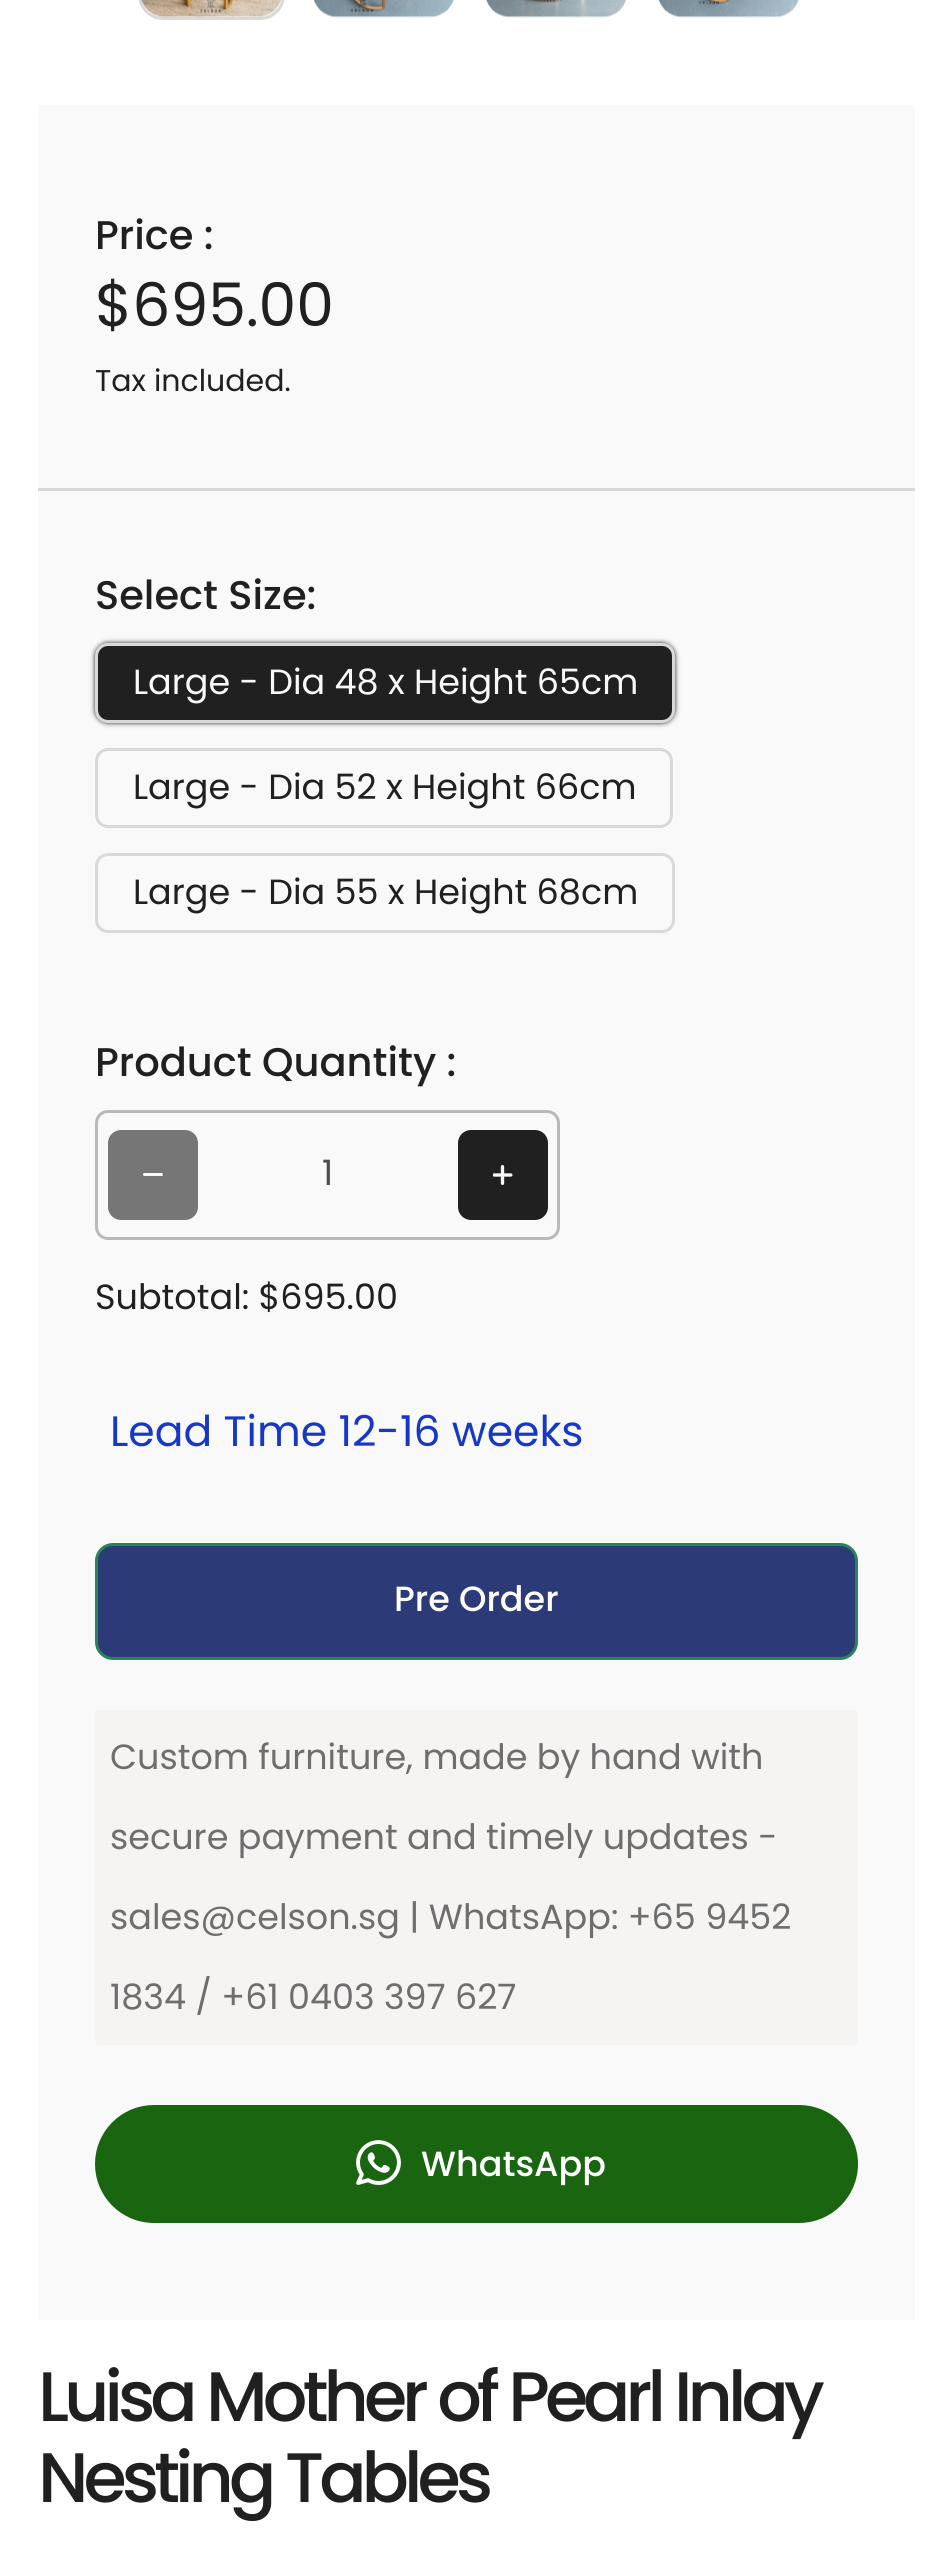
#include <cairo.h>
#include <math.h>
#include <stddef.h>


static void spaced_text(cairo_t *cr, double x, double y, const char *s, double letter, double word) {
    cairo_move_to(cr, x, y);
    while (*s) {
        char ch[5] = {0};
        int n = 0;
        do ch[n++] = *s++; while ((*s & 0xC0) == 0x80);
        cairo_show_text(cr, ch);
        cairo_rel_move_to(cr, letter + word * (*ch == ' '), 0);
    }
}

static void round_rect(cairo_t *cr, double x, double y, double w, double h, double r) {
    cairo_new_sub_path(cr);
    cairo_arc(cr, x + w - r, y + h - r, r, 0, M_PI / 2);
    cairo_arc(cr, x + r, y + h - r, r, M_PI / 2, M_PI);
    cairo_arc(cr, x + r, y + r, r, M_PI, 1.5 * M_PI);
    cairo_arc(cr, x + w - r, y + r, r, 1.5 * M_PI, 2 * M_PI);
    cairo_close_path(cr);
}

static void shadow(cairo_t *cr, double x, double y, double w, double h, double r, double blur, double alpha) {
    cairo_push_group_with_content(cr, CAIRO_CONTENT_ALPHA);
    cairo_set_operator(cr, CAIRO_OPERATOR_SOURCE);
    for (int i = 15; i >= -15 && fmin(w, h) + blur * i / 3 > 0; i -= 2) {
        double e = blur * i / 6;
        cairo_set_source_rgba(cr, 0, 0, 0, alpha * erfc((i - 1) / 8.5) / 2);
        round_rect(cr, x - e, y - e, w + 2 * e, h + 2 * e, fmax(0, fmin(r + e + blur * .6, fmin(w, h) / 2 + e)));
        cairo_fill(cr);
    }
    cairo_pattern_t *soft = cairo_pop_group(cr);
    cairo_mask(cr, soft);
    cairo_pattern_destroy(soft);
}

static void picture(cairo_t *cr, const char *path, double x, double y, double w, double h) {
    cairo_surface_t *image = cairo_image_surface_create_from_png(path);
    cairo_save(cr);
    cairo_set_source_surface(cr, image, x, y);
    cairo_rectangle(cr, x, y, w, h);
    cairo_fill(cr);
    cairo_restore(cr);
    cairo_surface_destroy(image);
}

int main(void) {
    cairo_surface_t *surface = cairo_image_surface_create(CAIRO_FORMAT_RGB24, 952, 2553);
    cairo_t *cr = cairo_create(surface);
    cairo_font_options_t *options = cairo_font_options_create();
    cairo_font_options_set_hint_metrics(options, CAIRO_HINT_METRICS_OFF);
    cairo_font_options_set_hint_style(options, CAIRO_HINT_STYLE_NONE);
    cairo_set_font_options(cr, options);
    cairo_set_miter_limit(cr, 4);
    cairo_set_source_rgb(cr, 1, 1, 1);
    cairo_paint(cr);
    round_rect(cr, 139.5, -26.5, 144, 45, 23.5);
    cairo_set_source_rgb(cr, 0.851, 0.851, 0.851);
    cairo_set_line_width(cr, 3);
    cairo_stroke(cr);
    picture(cr, "img1.png", 141, 0, 140, 18);
    picture(cr, "img2.png", 314, 0, 140, 18);
    picture(cr, "img3.png", 486, 0, 140, 18);
    picture(cr, "img4.png", 659, 0, 140, 18);
    cairo_set_source_rgb(cr, 0.973, 0.973, 0.973);
    cairo_rectangle(cr, 38, 105, 877, 2215);
    cairo_fill(cr);
    cairo_select_font_face(cr, "Poppins Medium", CAIRO_FONT_SLANT_NORMAL, CAIRO_FONT_WEIGHT_NORMAL);
    cairo_set_font_size(cr, 40);
    cairo_set_source_rgb(cr, 0.125, 0.125, 0.125);
    cairo_move_to(cr, 95, 249);
    cairo_show_text(cr, "Price :");
    cairo_select_font_face(cr, "Poppins", CAIRO_FONT_SLANT_NORMAL, CAIRO_FONT_WEIGHT_NORMAL);
    cairo_set_font_size(cr, 60);
    cairo_move_to(cr, 95, 326);
    cairo_show_text(cr, "$695.00");
    cairo_set_font_size(cr, 30);
    cairo_move_to(cr, 95, 391);
    cairo_show_text(cr, "Tax included.");
    cairo_set_source_rgb(cr, 0.851, 0.851, 0.851);
    cairo_rectangle(cr, 38, 488, 877, 3);
    cairo_fill(cr);
    cairo_select_font_face(cr, "Poppins Medium", CAIRO_FONT_SLANT_NORMAL, CAIRO_FONT_WEIGHT_NORMAL);
    cairo_set_font_size(cr, 40);
    cairo_set_source_rgb(cr, 0.125, 0.125, 0.125);
    cairo_move_to(cr, 95, 609);
    cairo_show_text(cr, "Select Size:");
    cairo_set_source_rgb(cr, 0.125, 0.125, 0.125);
    shadow(cr, 95, 643, 580, 80, 13, 2.5, 1);
    cairo_set_source_rgb(cr, 0.125, 0.125, 0.125);
    round_rect(cr, 96.5, 644.5, 577, 77, 11.5);
    cairo_fill_preserve(cr);
    cairo_set_source_rgb(cr, 0.851, 0.851, 0.851);
    cairo_stroke(cr);
    cairo_select_font_face(cr, "Poppins", CAIRO_FONT_SLANT_NORMAL, CAIRO_FONT_WEIGHT_NORMAL);
    cairo_set_font_size(cr, 35);
    cairo_set_source_rgb(cr, 0.973, 0.973, 0.973);
    cairo_move_to(cr, 133, 694);
    cairo_show_text(cr, "Large - Dia 48 x Height 65cm");
    round_rect(cr, 96.5, 749.5, 575, 77, 11.5);
    cairo_set_source_rgb(cr, 0.851, 0.851, 0.851);
    cairo_stroke(cr);
    cairo_set_source_rgb(cr, 0.125, 0.125, 0.125);
    cairo_move_to(cr, 133, 799);
    cairo_show_text(cr, "Large - Dia 52 x Height 66cm");
    round_rect(cr, 96.5, 854.5, 577, 77, 11.5);
    cairo_set_source_rgb(cr, 0.851, 0.851, 0.851);
    cairo_stroke(cr);
    cairo_set_source_rgb(cr, 0.125, 0.125, 0.125);
    cairo_move_to(cr, 133, 904);
    cairo_show_text(cr, "Large - Dia 55 x Height 68cm");
    cairo_select_font_face(cr, "Poppins Medium", CAIRO_FONT_SLANT_NORMAL, CAIRO_FONT_WEIGHT_NORMAL);
    cairo_set_font_size(cr, 40);
    cairo_move_to(cr, 95, 1076);
    cairo_show_text(cr, "Product Quantity :");
    round_rect(cr, 96.5, 1111.5, 462, 127, 11.5);
    cairo_set_source_rgb(cr, 0.725, 0.725, 0.725);
    cairo_stroke(cr);
    cairo_set_source_rgb(cr, 0.463, 0.463, 0.463);
    round_rect(cr, 108, 1130, 90, 90, 13);
    cairo_fill(cr);
    cairo_set_source_rgb(cr, 0.973, 0.973, 0.973);
    round_rect(cr, 143, 1173, 20, 3, 1.5);
    cairo_fill(cr);
    cairo_select_font_face(cr, "Poppins", CAIRO_FONT_SLANT_NORMAL, CAIRO_FONT_WEIGHT_NORMAL);
    cairo_set_font_size(cr, 35);
    cairo_set_source_rgb(cr, 0.306, 0.306, 0.306);
    cairo_move_to(cr, 322, 1185);
    cairo_show_text(cr, "1");
    cairo_set_source_rgb(cr, 0.125, 0.125, 0.125);
    round_rect(cr, 458, 1130, 90, 90, 13);
    cairo_fill(cr);
    picture(cr, "img5.png", 493, 1165, 20, 20);
    cairo_move_to(cr, 95, 1309);
    cairo_show_text(cr, "Subtotal: $695.00");
    cairo_set_font_size(cr, 42.5);
    cairo_set_source_rgb(cr, 0.09, 0.216, 0.773);
    cairo_move_to(cr, 110, 1446);
    cairo_show_text(cr, "Lead Time 12-16 weeks");
    cairo_set_source_rgb(cr, 0.176, 0.227, 0.471);
    round_rect(cr, 96.5, 1544.5, 760, 114, 16.5);
    cairo_fill_preserve(cr);
    cairo_set_source_rgb(cr, 0.161, 0.518, 0.353);
    cairo_stroke(cr);
    cairo_select_font_face(cr, "Poppins Medium", CAIRO_FONT_SLANT_NORMAL, CAIRO_FONT_WEIGHT_NORMAL);
    cairo_set_font_size(cr, 35);
    cairo_set_source_rgb(cr, 1, 1, 1);
    cairo_move_to(cr, 394, 1611);
    cairo_show_text(cr, "Pre Order");
    cairo_set_source_rgb(cr, 0.961, 0.953, 0.953);
    round_rect(cr, 95, 1710, 763, 335, 5);
    cairo_fill(cr);
    cairo_select_font_face(cr, "Poppins", CAIRO_FONT_SLANT_NORMAL, CAIRO_FONT_WEIGHT_NORMAL);
    cairo_set_source_rgb(cr, 0.431, 0.431, 0.431);
    cairo_move_to(cr, 110, 1769);
    cairo_show_text(cr, "Custom furniture, made by hand with");
    cairo_move_to(cr, 110, 1849);
    cairo_show_text(cr, "secure payment and timely updates -");
    cairo_move_to(cr, 110, 1929);
    cairo_show_text(cr, "sales@celson.sg | WhatsApp: +65 9452");
    cairo_move_to(cr, 110, 2009);
    cairo_show_text(cr, "1834 / +61 0403 397 627");
    cairo_set_source_rgb(cr, 0.102, 0.396, 0.063);
    round_rect(cr, 96.5, 2106.5, 760, 115, 57.5);
    cairo_fill_preserve(cr);
    cairo_stroke(cr);
    picture(cr, "img6.png", 356, 2140, 45, 45);
    cairo_select_font_face(cr, "Poppins Medium", CAIRO_FONT_SLANT_NORMAL, CAIRO_FONT_WEIGHT_NORMAL);
    cairo_set_source_rgb(cr, 1, 1, 1);
    cairo_move_to(cr, 421, 2176);
    cairo_show_text(cr, "WhatsApp");
    cairo_set_font_size(cr, 70);
    cairo_set_source_rgb(cr, 0.125, 0.125, 0.125);
    spaced_text(cr, 38, 2421, "Luisa Mother of Pearl Inlay", -5, 0);
    spaced_text(cr, 38, 2502, "Nesting Tables", -5, 0);
    cairo_surface_write_to_png(surface, "page.png");
    cairo_font_options_destroy(options);
    cairo_destroy(cr);
    cairo_surface_destroy(surface);
    return 0;
}
